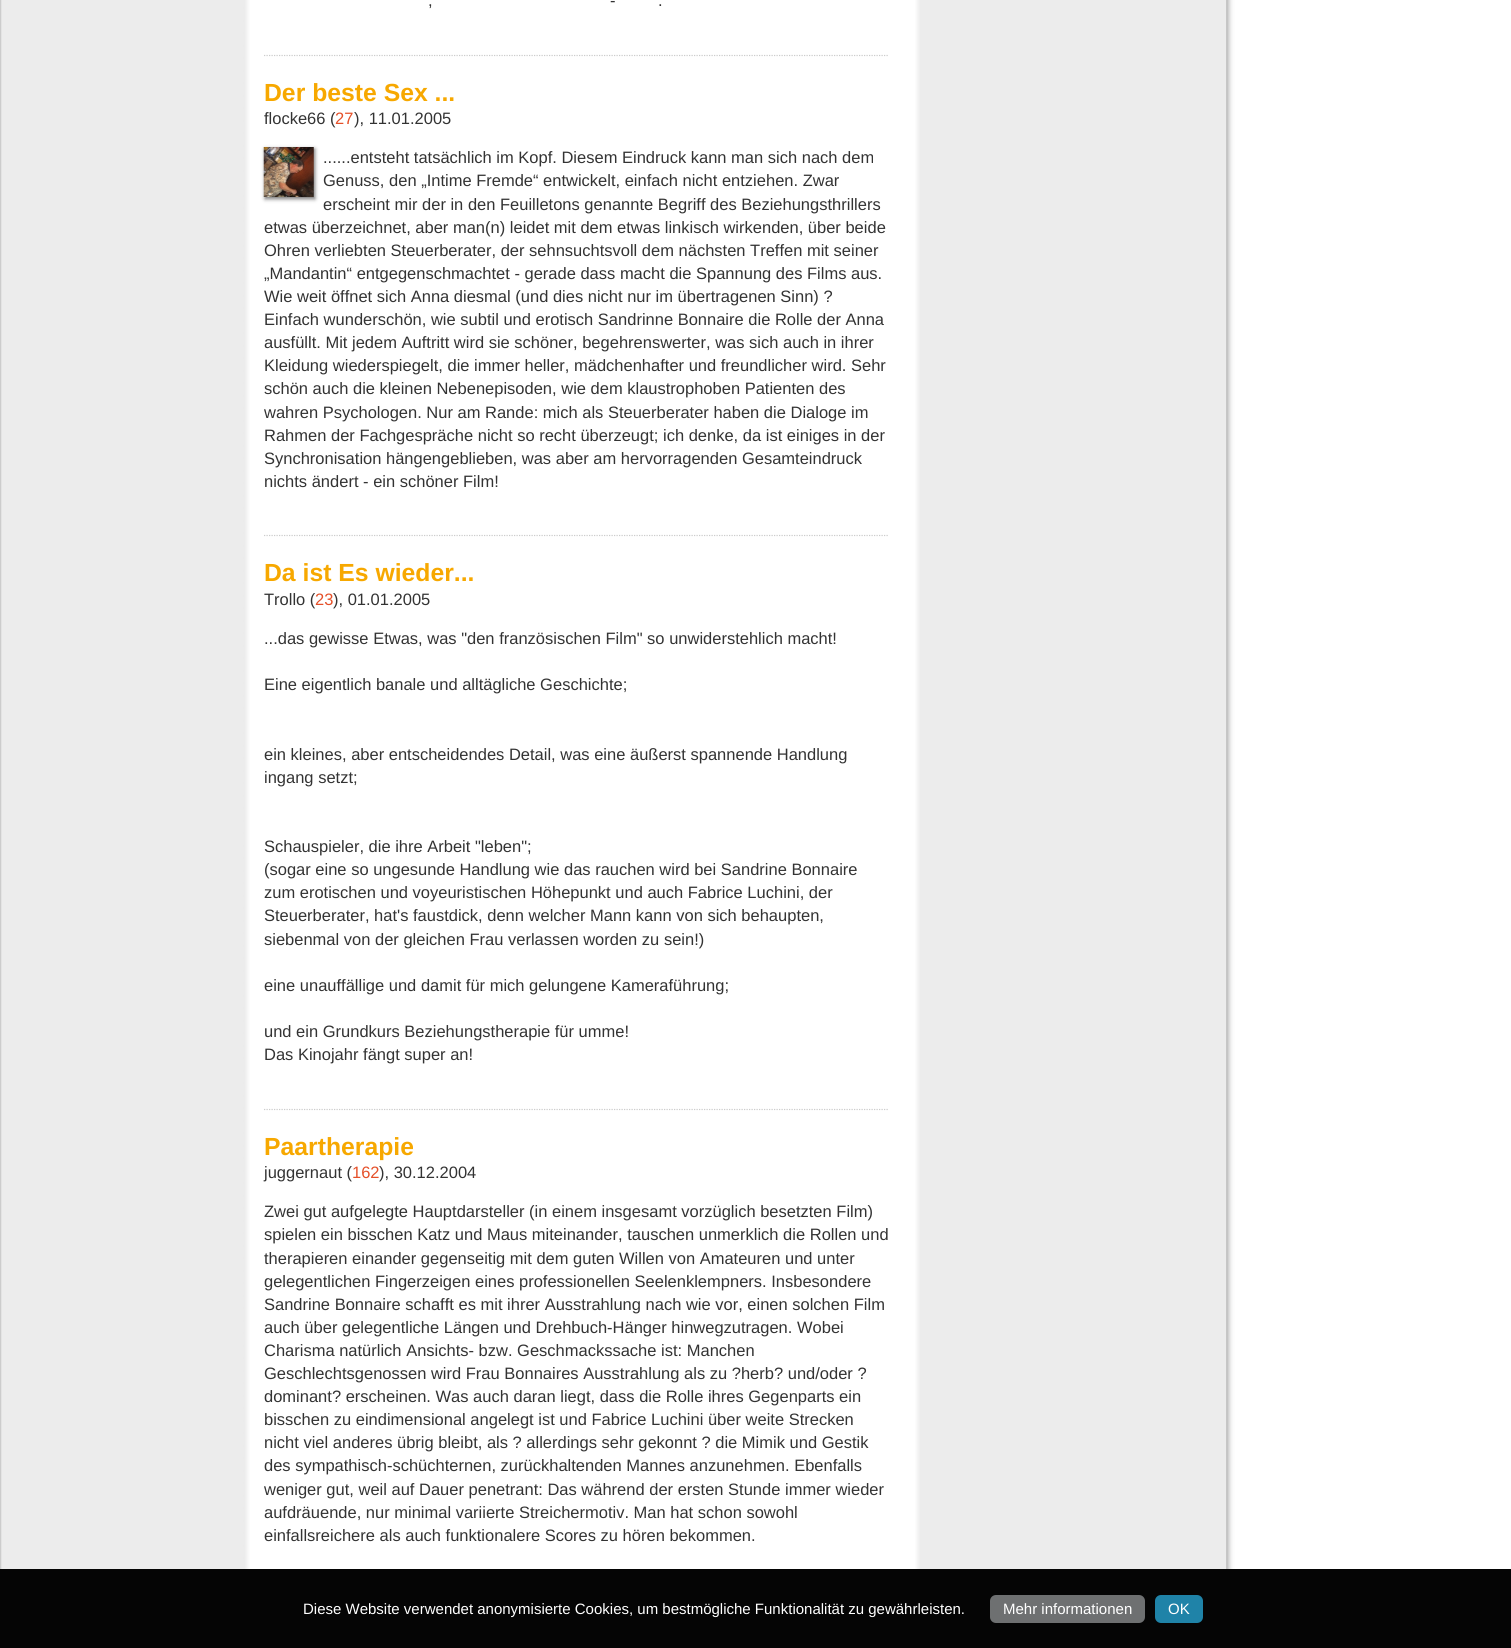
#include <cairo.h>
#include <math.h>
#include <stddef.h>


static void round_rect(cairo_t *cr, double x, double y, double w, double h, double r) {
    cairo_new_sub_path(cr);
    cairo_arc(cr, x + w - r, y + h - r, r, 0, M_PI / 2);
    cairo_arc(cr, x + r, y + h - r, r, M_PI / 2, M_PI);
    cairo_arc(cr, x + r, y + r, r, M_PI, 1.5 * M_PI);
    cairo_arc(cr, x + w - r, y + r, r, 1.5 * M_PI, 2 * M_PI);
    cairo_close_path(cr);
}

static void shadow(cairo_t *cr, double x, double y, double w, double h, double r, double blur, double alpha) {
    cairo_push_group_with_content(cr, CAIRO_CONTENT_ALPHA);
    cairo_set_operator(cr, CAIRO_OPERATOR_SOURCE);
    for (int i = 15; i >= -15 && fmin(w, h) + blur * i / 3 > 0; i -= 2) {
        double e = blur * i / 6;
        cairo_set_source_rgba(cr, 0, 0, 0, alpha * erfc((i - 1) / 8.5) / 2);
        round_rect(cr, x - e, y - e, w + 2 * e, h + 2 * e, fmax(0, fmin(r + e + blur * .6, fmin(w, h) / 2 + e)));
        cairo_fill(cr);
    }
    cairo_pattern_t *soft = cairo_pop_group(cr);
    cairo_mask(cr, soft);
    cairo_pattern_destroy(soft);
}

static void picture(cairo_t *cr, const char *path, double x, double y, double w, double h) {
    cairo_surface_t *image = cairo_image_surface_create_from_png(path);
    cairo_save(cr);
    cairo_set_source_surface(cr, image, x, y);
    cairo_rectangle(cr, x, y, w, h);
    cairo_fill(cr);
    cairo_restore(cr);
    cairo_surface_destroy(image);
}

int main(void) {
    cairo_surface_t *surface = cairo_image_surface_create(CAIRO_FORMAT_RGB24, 1511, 1648);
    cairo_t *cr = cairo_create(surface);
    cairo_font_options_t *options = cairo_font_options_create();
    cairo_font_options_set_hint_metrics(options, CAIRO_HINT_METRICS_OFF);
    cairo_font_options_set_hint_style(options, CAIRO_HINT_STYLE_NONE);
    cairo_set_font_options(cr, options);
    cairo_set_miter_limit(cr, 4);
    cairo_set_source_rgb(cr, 1, 1, 1);
    cairo_paint(cr);
    cairo_set_source_rgb(cr, 0.6, 0.6, 0.6);
    shadow(cr, 1, -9, 1227, 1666, 0, 3, 1);
    picture(cr, "img1.png", 1, 0, 1226, 1569);
    cairo_set_source_rgb(cr, 0.8, 0.8, 0.8);
    cairo_rectangle(cr, 0, 0, 1, 1569);
    cairo_fill(cr);
    cairo_select_font_face(cr, "Liberation Sans", CAIRO_FONT_SLANT_NORMAL, CAIRO_FONT_WEIGHT_NORMAL);
    cairo_set_font_size(cr, 16.5);
    cairo_set_source_rgb(cr, 0.2, 0.2, 0.2);
    cairo_move_to(cr, 610, 6);
    cairo_show_text(cr, "-");
    cairo_move_to(cr, 428, 6);
    cairo_show_text(cr, ",");
    cairo_move_to(cr, 658, 6);
    cairo_show_text(cr, ".");
    cairo_new_path(cr);
    cairo_move_to(cr, 264, 55.5);
    cairo_line_to(cr, 889, 55.5);
    cairo_set_source_rgb(cr, 0.8, 0.8, 0.8);
    cairo_set_line_width(cr, 1.2);
    cairo_set_dash(cr, (double[]){1.25, 1.25}, 2, 0);
    cairo_stroke(cr);
    cairo_select_font_face(cr, "Liberation Sans", CAIRO_FONT_SLANT_NORMAL, CAIRO_FONT_WEIGHT_BOLD);
    cairo_set_font_size(cr, 24.75);
    cairo_set_source_rgb(cr, 0.965, 0.659, 0);
    cairo_move_to(cr, 264, 101);
    cairo_show_text(cr, "Der beste Sex ...");
    cairo_select_font_face(cr, "Liberation Sans", CAIRO_FONT_SLANT_NORMAL, CAIRO_FONT_WEIGHT_NORMAL);
    cairo_set_font_size(cr, 16.5);
    cairo_set_source_rgb(cr, 0.2, 0.2, 0.2);
    cairo_move_to(cr, 264, 124);
    cairo_show_text(cr, "flocke66 (");
    cairo_set_source_rgb(cr, 0.898, 0.314, 0.161);
    cairo_move_to(cr, 335, 124);
    cairo_show_text(cr, "27");
    cairo_set_source_rgb(cr, 0.2, 0.2, 0.2);
    cairo_move_to(cr, 354, 124);
    cairo_show_text(cr, "), 11.01.2005");
    cairo_set_source_rgb(cr, 0.467, 0.467, 0.467);
    shadow(cr, 265, 149, 50, 50, 0, 2, 1);
    picture(cr, "img2.png", 263, 147, 51, 50);
    cairo_set_source_rgb(cr, 0.2, 0.2, 0.2);
    cairo_move_to(cr, 323, 163);
    cairo_show_text(cr, "......entsteht tatsächlich im Kopf. Diesem Eindruck kann man sich nach dem");
    cairo_move_to(cr, 323, 186);
    cairo_show_text(cr, "Genuss, den „Intime Fremde“ entwickelt, einfach nicht entziehen. Zwar");
    cairo_move_to(cr, 323, 210);
    cairo_show_text(cr, "erscheint mir der in den Feuilletons genannte Begriff des Beziehungsthrillers");
    cairo_move_to(cr, 264, 233);
    cairo_show_text(cr, "etwas überzeichnet, aber man(n) leidet mit dem etwas linkisch wirkenden, über beide");
    cairo_move_to(cr, 264, 256);
    cairo_show_text(cr, "Ohren verliebten Steuerberater, der sehnsuchtsvoll dem nächsten Treffen mit seiner");
    cairo_move_to(cr, 264, 279);
    cairo_show_text(cr, "„Mandantin“ entgegenschmachtet - gerade dass macht die Spannung des Films aus.");
    cairo_move_to(cr, 264, 302);
    cairo_show_text(cr, "Wie weit öffnet sich Anna diesmal (und dies nicht nur im übertragenen Sinn) ?");
    cairo_move_to(cr, 264, 325);
    cairo_show_text(cr, "Einfach wunderschön, wie subtil und erotisch Sandrinne Bonnaire die Rolle der Anna");
    cairo_move_to(cr, 264, 348);
    cairo_show_text(cr, "ausfüllt. Mit jedem Auftritt wird sie schöner, begehrenswerter, was sich auch in ihrer");
    cairo_move_to(cr, 264, 371);
    cairo_show_text(cr, "Kleidung wiederspiegelt, die immer heller, mädchenhafter und freundlicher wird. Sehr");
    cairo_move_to(cr, 264, 394);
    cairo_show_text(cr, "schön auch die kleinen Nebenepisoden, wie dem klaustrophoben Patienten des");
    cairo_move_to(cr, 264, 418);
    cairo_show_text(cr, "wahren Psychologen. Nur am Rande: mich als Steuerberater haben die Dialoge im");
    cairo_move_to(cr, 264, 441);
    cairo_show_text(cr, "Rahmen der Fachgespräche nicht so recht überzeugt; ich denke, da ist einiges in der");
    cairo_move_to(cr, 264, 464);
    cairo_show_text(cr, "Synchronisation hängengeblieben, was aber am hervorragenden Gesamteindruck");
    cairo_move_to(cr, 264, 487);
    cairo_show_text(cr, "nichts ändert - ein schöner Film!");
    cairo_new_path(cr);
    cairo_move_to(cr, 264, 535.5);
    cairo_line_to(cr, 889, 535.5);
    cairo_set_source_rgb(cr, 0.8, 0.8, 0.8);
    cairo_stroke(cr);
    cairo_select_font_face(cr, "Liberation Sans", CAIRO_FONT_SLANT_NORMAL, CAIRO_FONT_WEIGHT_BOLD);
    cairo_set_font_size(cr, 24.75);
    cairo_set_source_rgb(cr, 0.965, 0.659, 0);
    cairo_move_to(cr, 264, 581);
    cairo_show_text(cr, "Da ist Es wieder...");
    cairo_select_font_face(cr, "Liberation Sans", CAIRO_FONT_SLANT_NORMAL, CAIRO_FONT_WEIGHT_NORMAL);
    cairo_set_font_size(cr, 16.5);
    cairo_set_source_rgb(cr, 0.2, 0.2, 0.2);
    cairo_move_to(cr, 264, 605);
    cairo_show_text(cr, "Trollo (");
    cairo_set_source_rgb(cr, 0.898, 0.314, 0.161);
    cairo_move_to(cr, 315, 605);
    cairo_show_text(cr, "23");
    cairo_set_source_rgb(cr, 0.2, 0.2, 0.2);
    cairo_move_to(cr, 333, 605);
    cairo_show_text(cr, "), 01.01.2005");
    cairo_move_to(cr, 264, 644);
    cairo_show_text(cr, "...das gewisse Etwas, was \"den französischen Film\" so unwiderstehlich macht!");
    cairo_move_to(cr, 264, 690);
    cairo_show_text(cr, "Eine eigentlich banale und alltägliche Geschichte;");
    cairo_move_to(cr, 264, 760);
    cairo_show_text(cr, "ein kleines, aber entscheidendes Detail, was eine äußerst spannende Handlung");
    cairo_move_to(cr, 264, 783);
    cairo_show_text(cr, "ingang setzt;");
    cairo_move_to(cr, 264, 852);
    cairo_show_text(cr, "Schauspieler, die ihre Arbeit \"leben\";");
    cairo_move_to(cr, 264, 875);
    cairo_show_text(cr, "(sogar eine so ungesunde Handlung wie das rauchen wird bei Sandrine Bonnaire");
    cairo_move_to(cr, 264, 898);
    cairo_show_text(cr, "zum erotischen und voyeuristischen Höhepunkt und auch Fabrice Luchini, der");
    cairo_move_to(cr, 264, 921);
    cairo_show_text(cr, "Steuerberater, hat's faustdick, denn welcher Mann kann von sich behaupten,");
    cairo_move_to(cr, 264, 945);
    cairo_show_text(cr, "siebenmal von der gleichen Frau verlassen worden zu sein!)");
    cairo_move_to(cr, 264, 991);
    cairo_show_text(cr, "eine unauffällige und damit für mich gelungene Kameraführung;");
    cairo_move_to(cr, 264, 1037);
    cairo_show_text(cr, "und ein Grundkurs Beziehungstherapie für umme!");
    cairo_move_to(cr, 264, 1060);
    cairo_show_text(cr, "Das Kinojahr fängt super an!");
    cairo_new_path(cr);
    cairo_move_to(cr, 264, 1109.5);
    cairo_line_to(cr, 889, 1109.5);
    cairo_set_source_rgb(cr, 0.8, 0.8, 0.8);
    cairo_stroke(cr);
    cairo_select_font_face(cr, "Liberation Sans", CAIRO_FONT_SLANT_NORMAL, CAIRO_FONT_WEIGHT_BOLD);
    cairo_set_font_size(cr, 24.75);
    cairo_set_source_rgb(cr, 0.965, 0.659, 0);
    cairo_move_to(cr, 264, 1155);
    cairo_show_text(cr, "Paartherapie");
    cairo_select_font_face(cr, "Liberation Sans", CAIRO_FONT_SLANT_NORMAL, CAIRO_FONT_WEIGHT_NORMAL);
    cairo_set_font_size(cr, 16.5);
    cairo_set_source_rgb(cr, 0.2, 0.2, 0.2);
    cairo_move_to(cr, 264, 1178);
    cairo_show_text(cr, "juggernaut (");
    cairo_set_source_rgb(cr, 0.898, 0.314, 0.161);
    cairo_move_to(cr, 352, 1178);
    cairo_show_text(cr, "162");
    cairo_set_source_rgb(cr, 0.2, 0.2, 0.2);
    cairo_move_to(cr, 379, 1178);
    cairo_show_text(cr, "), 30.12.2004");
    cairo_move_to(cr, 264, 1217);
    cairo_show_text(cr, "Zwei gut aufgelegte Hauptdarsteller (in einem insgesamt vorzüglich besetzten Film)");
    cairo_move_to(cr, 264, 1240);
    cairo_show_text(cr, "spielen ein bisschen Katz und Maus miteinander, tauschen unmerklich die Rollen und");
    cairo_move_to(cr, 264, 1264);
    cairo_show_text(cr, "therapieren einander gegenseitig mit dem guten Willen von Amateuren und unter");
    cairo_move_to(cr, 264, 1287);
    cairo_show_text(cr, "gelegentlichen Fingerzeigen eines professionellen Seelenklempners. Insbesondere");
    cairo_move_to(cr, 264, 1310);
    cairo_show_text(cr, "Sandrine Bonnaire schafft es mit ihrer Ausstrahlung nach wie vor, einen solchen Film");
    cairo_move_to(cr, 264, 1333);
    cairo_show_text(cr, "auch über gelegentliche Längen und Drehbuch-Hänger hinwegzutragen. Wobei");
    cairo_move_to(cr, 264, 1356);
    cairo_show_text(cr, "Charisma natürlich Ansichts- bzw. Geschmackssache ist: Manchen");
    cairo_move_to(cr, 264, 1379);
    cairo_show_text(cr, "Geschlechtsgenossen wird Frau Bonnaires Ausstrahlung als zu ?herb? und/oder ?");
    cairo_move_to(cr, 264, 1402);
    cairo_show_text(cr, "dominant? erscheinen. Was auch daran liegt, dass die Rolle ihres Gegenparts ein");
    cairo_move_to(cr, 264, 1425);
    cairo_show_text(cr, "bisschen zu eindimensional angelegt ist und Fabrice Luchini über weite Strecken");
    cairo_move_to(cr, 264, 1448);
    cairo_show_text(cr, "nicht viel anderes übrig bleibt, als ? allerdings sehr gekonnt ? die Mimik und Gestik");
    cairo_move_to(cr, 264, 1471);
    cairo_show_text(cr, "des sympathisch-schüchternen, zurückhaltenden Mannes anzunehmen. Ebenfalls");
    cairo_move_to(cr, 264, 1495);
    cairo_show_text(cr, "weniger gut, weil auf Dauer penetrant: Das während der ersten Stunde immer wieder");
    cairo_move_to(cr, 264, 1518);
    cairo_show_text(cr, "aufdräuende, nur minimal variierte Streichermotiv. Man hat schon sowohl");
    cairo_move_to(cr, 264, 1541);
    cairo_show_text(cr, "einfallsreichere als auch funktionalere Scores zu hören bekommen.");
    cairo_set_source_rgb(cr, 0.02, 0.02, 0.02);
    cairo_rectangle(cr, 0, 1569, 1511, 79);
    cairo_fill(cr);
    cairo_set_font_size(cr, 15);
    cairo_set_source_rgb(cr, 1, 1, 1);
    cairo_move_to(cr, 303, 1614);
    cairo_show_text(cr, "Diese Website verwendet anonymisierte Cookies, um bestmögliche Funktionalität zu gewährleisten.");
    cairo_set_source_rgb(cr, 0.431, 0.439, 0.443);
    round_rect(cr, 990, 1595, 155, 28, 6);
    cairo_fill(cr);
    cairo_set_source_rgb(cr, 1, 1, 1);
    cairo_move_to(cr, 1003, 1614);
    cairo_show_text(cr, "Mehr informationen");
    cairo_set_source_rgb(cr, 0.122, 0.514, 0.659);
    round_rect(cr, 1155, 1595, 48, 28, 6);
    cairo_fill(cr);
    cairo_set_source_rgb(cr, 1, 1, 1);
    cairo_move_to(cr, 1168, 1614);
    cairo_show_text(cr, "OK");
    cairo_surface_write_to_png(surface, "page.png");
    cairo_font_options_destroy(options);
    cairo_destroy(cr);
    cairo_surface_destroy(surface);
    return 0;
}
